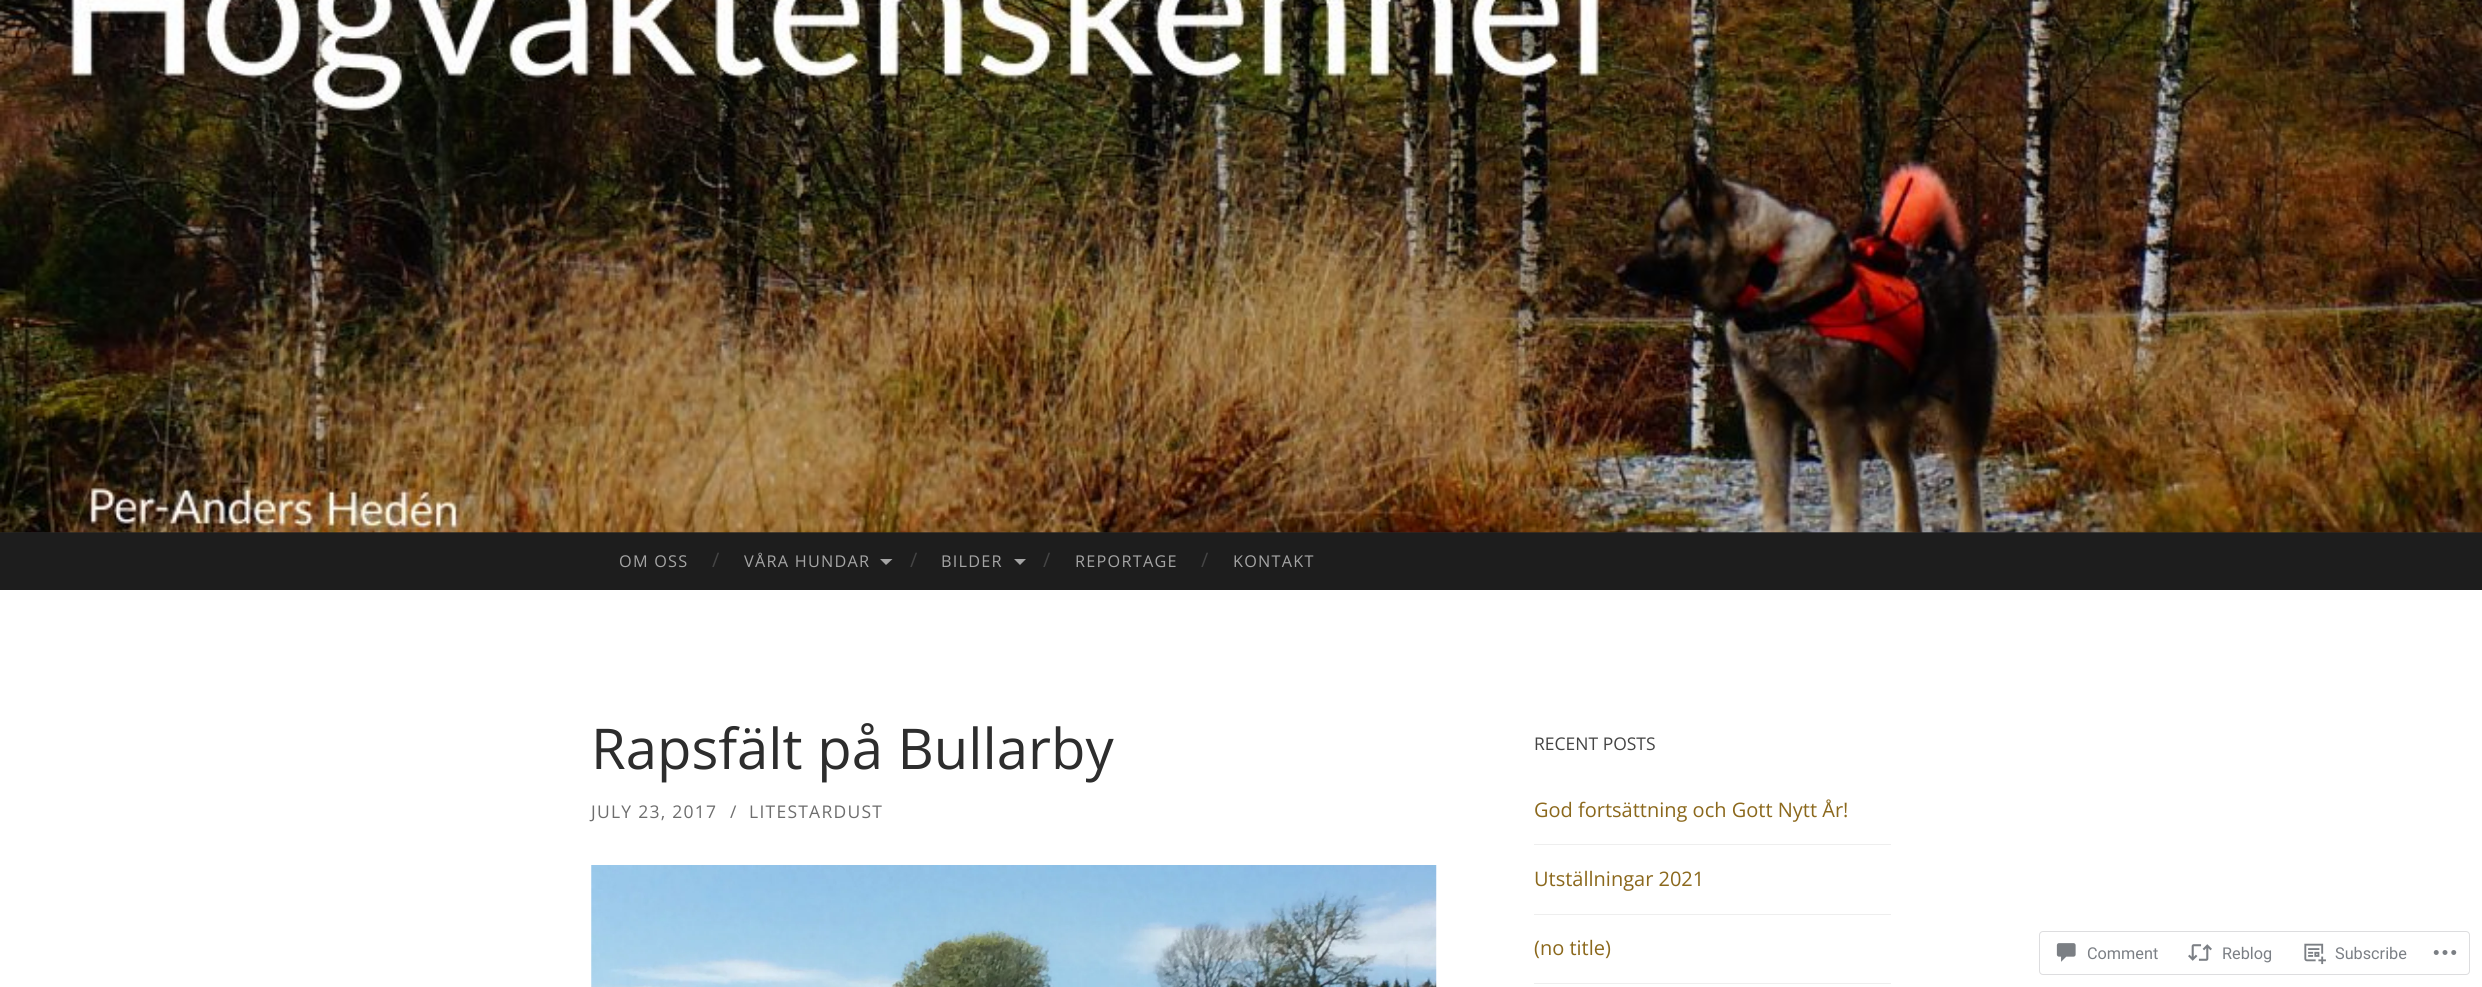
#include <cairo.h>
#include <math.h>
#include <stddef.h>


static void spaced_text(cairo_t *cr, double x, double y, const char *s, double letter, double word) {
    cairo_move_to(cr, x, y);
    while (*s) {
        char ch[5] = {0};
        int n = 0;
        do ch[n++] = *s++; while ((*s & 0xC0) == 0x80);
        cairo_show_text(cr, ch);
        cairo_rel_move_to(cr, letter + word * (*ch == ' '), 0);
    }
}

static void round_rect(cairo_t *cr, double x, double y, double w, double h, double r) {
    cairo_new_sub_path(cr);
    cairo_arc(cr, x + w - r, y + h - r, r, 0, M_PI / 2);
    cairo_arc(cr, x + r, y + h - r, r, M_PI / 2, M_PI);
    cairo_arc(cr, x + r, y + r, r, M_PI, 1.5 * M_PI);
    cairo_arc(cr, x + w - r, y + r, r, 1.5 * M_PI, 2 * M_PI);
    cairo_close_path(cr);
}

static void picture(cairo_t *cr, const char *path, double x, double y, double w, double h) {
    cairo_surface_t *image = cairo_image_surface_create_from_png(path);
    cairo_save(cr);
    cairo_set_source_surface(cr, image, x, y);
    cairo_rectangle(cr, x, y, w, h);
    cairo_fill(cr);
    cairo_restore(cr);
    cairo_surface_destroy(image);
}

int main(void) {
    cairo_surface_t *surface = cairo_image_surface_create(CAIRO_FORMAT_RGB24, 2482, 987);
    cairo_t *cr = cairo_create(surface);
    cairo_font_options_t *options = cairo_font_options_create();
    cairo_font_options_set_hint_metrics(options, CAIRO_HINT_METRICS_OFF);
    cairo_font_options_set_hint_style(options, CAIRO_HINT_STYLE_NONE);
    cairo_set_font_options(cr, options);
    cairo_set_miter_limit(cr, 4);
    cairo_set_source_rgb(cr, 1, 1, 1);
    cairo_paint(cr);
    cairo_set_source_rgb(cr, 0.149, 0.149, 0.149);
    cairo_rectangle(cr, 0, 532, 2482, 1);
    cairo_fill(cr);
    picture(cr, "img1.png", 0, 0, 2482, 533);
    cairo_set_source_rgb(cr, 0.114, 0.114, 0.114);
    cairo_rectangle(cr, 0, 533, 2482, 57);
    cairo_fill(cr);
    cairo_select_font_face(cr, "Open Sans", CAIRO_FONT_SLANT_NORMAL, CAIRO_FONT_WEIGHT_NORMAL);
    cairo_set_font_size(cr, 16.25);
    cairo_set_source_rgb(cr, 0.647, 0.647, 0.647);
    spaced_text(cr, 619, 567, "OM OSS", 1.25, 0);
    cairo_set_font_size(cr, 20);
    cairo_set_source_rgb(cr, 0.267, 0.267, 0.267);
    cairo_move_to(cr, 712, 567);
    cairo_show_text(cr, "/");
    cairo_set_font_size(cr, 16.25);
    cairo_set_source_rgb(cr, 0.647, 0.647, 0.647);
    spaced_text(cr, 744, 567, "VÅRA HUNDAR", 1.25, 0);
    cairo_new_path(cr);
    cairo_move_to(cr, 880, 559);
    cairo_line_to(cr, 892.5, 559);
    cairo_line_to(cr, 886, 565);
    cairo_close_path(cr);
    cairo_fill(cr);
    cairo_set_font_size(cr, 20);
    cairo_set_source_rgb(cr, 0.267, 0.267, 0.267);
    cairo_move_to(cr, 910, 567);
    cairo_show_text(cr, "/");
    cairo_set_font_size(cr, 16.25);
    cairo_set_source_rgb(cr, 0.647, 0.647, 0.647);
    spaced_text(cr, 941, 567, "BILDER", 1.25, 0);
    cairo_new_path(cr);
    cairo_move_to(cr, 1014, 559);
    cairo_line_to(cr, 1026, 559);
    cairo_line_to(cr, 1020, 565);
    cairo_close_path(cr);
    cairo_fill(cr);
    cairo_set_font_size(cr, 20);
    cairo_set_source_rgb(cr, 0.267, 0.267, 0.267);
    cairo_move_to(cr, 1043, 567);
    cairo_show_text(cr, "/");
    cairo_set_font_size(cr, 16.25);
    cairo_set_source_rgb(cr, 0.647, 0.647, 0.647);
    spaced_text(cr, 1075, 567, "REPORTAGE", 1.25, 0);
    cairo_set_font_size(cr, 20);
    cairo_set_source_rgb(cr, 0.267, 0.267, 0.267);
    cairo_move_to(cr, 1201, 567);
    cairo_show_text(cr, "/");
    cairo_set_font_size(cr, 16.25);
    cairo_set_source_rgb(cr, 0.647, 0.647, 0.647);
    spaced_text(cr, 1233, 567, "KONTAKT", 1.25, 0);
    cairo_set_font_size(cr, 56.25);
    cairo_set_source_rgb(cr, 0.176, 0.176, 0.176);
    cairo_move_to(cr, 591, 769);
    cairo_show_text(cr, "Rapsfält på Bullarby");
    cairo_set_font_size(cr, 17.5);
    cairo_set_source_rgb(cr, 0.427, 0.427, 0.427);
    spaced_text(cr, 591, 818, "JULY 23, 2017", 1.25, 0);
    spaced_text(cr, 730, 818, "/", 1.25, 0);
    spaced_text(cr, 749, 818, "LITESTARDUST", 1.25, 0);
    picture(cr, "img2.png", 591, 865, 846, 122);
    cairo_set_source_rgb(cr, 0.267, 0.267, 0.267);
    cairo_move_to(cr, 1534, 750);
    cairo_show_text(cr, "RECENT POSTS");
    cairo_set_font_size(cr, 20);
    cairo_set_source_rgb(cr, 0.545, 0.408, 0.11);
    cairo_move_to(cr, 1534, 817);
    cairo_show_text(cr, "God fortsättning och Gott Nytt År!");
    cairo_set_source_rgb(cr, 0.933, 0.933, 0.933);
    cairo_rectangle(cr, 1534, 844, 357, 1);
    cairo_fill(cr);
    cairo_set_source_rgb(cr, 0.545, 0.408, 0.11);
    cairo_move_to(cr, 1534, 886);
    cairo_show_text(cr, "Utställningar 2021");
    cairo_set_source_rgb(cr, 0.933, 0.933, 0.933);
    cairo_rectangle(cr, 1534, 914, 357, 1);
    cairo_fill(cr);
    cairo_set_source_rgb(cr, 0.545, 0.408, 0.11);
    cairo_move_to(cr, 1534, 955);
    cairo_show_text(cr, "(no title)");
    cairo_set_source_rgb(cr, 0.933, 0.933, 0.933);
    cairo_rectangle(cr, 1534, 983, 357, 1);
    cairo_fill(cr);
    round_rect(cr, 2039.5, 931.5, 430, 43, 3.5);
    cairo_set_source_rgb(cr, 0.867, 0.867, 0.875);
    cairo_set_line_width(cr, 1);
    cairo_stroke(cr);
    picture(cr, "img3.png", 2056, 943, 20, 19);
    cairo_select_font_face(cr, "Roboto", CAIRO_FONT_SLANT_NORMAL, CAIRO_FONT_WEIGHT_NORMAL);
    cairo_set_font_size(cr, 16.25);
    cairo_set_source_rgb(cr, 0.482, 0.498, 0.522);
    cairo_move_to(cr, 2087, 959);
    cairo_show_text(cr, "Comment");
    picture(cr, "img4.png", 2188, 944, 24, 17);
    cairo_move_to(cr, 2222, 959);
    cairo_show_text(cr, "Reblog");
    picture(cr, "img5.png", 2304, 943, 22, 22);
    cairo_move_to(cr, 2335, 959);
    cairo_show_text(cr, "Subscribe");
    picture(cr, "img6.png", 2433, 950, 24, 5);
    cairo_surface_write_to_png(surface, "page.png");
    cairo_font_options_destroy(options);
    cairo_destroy(cr);
    cairo_surface_destroy(surface);
    return 0;
}
